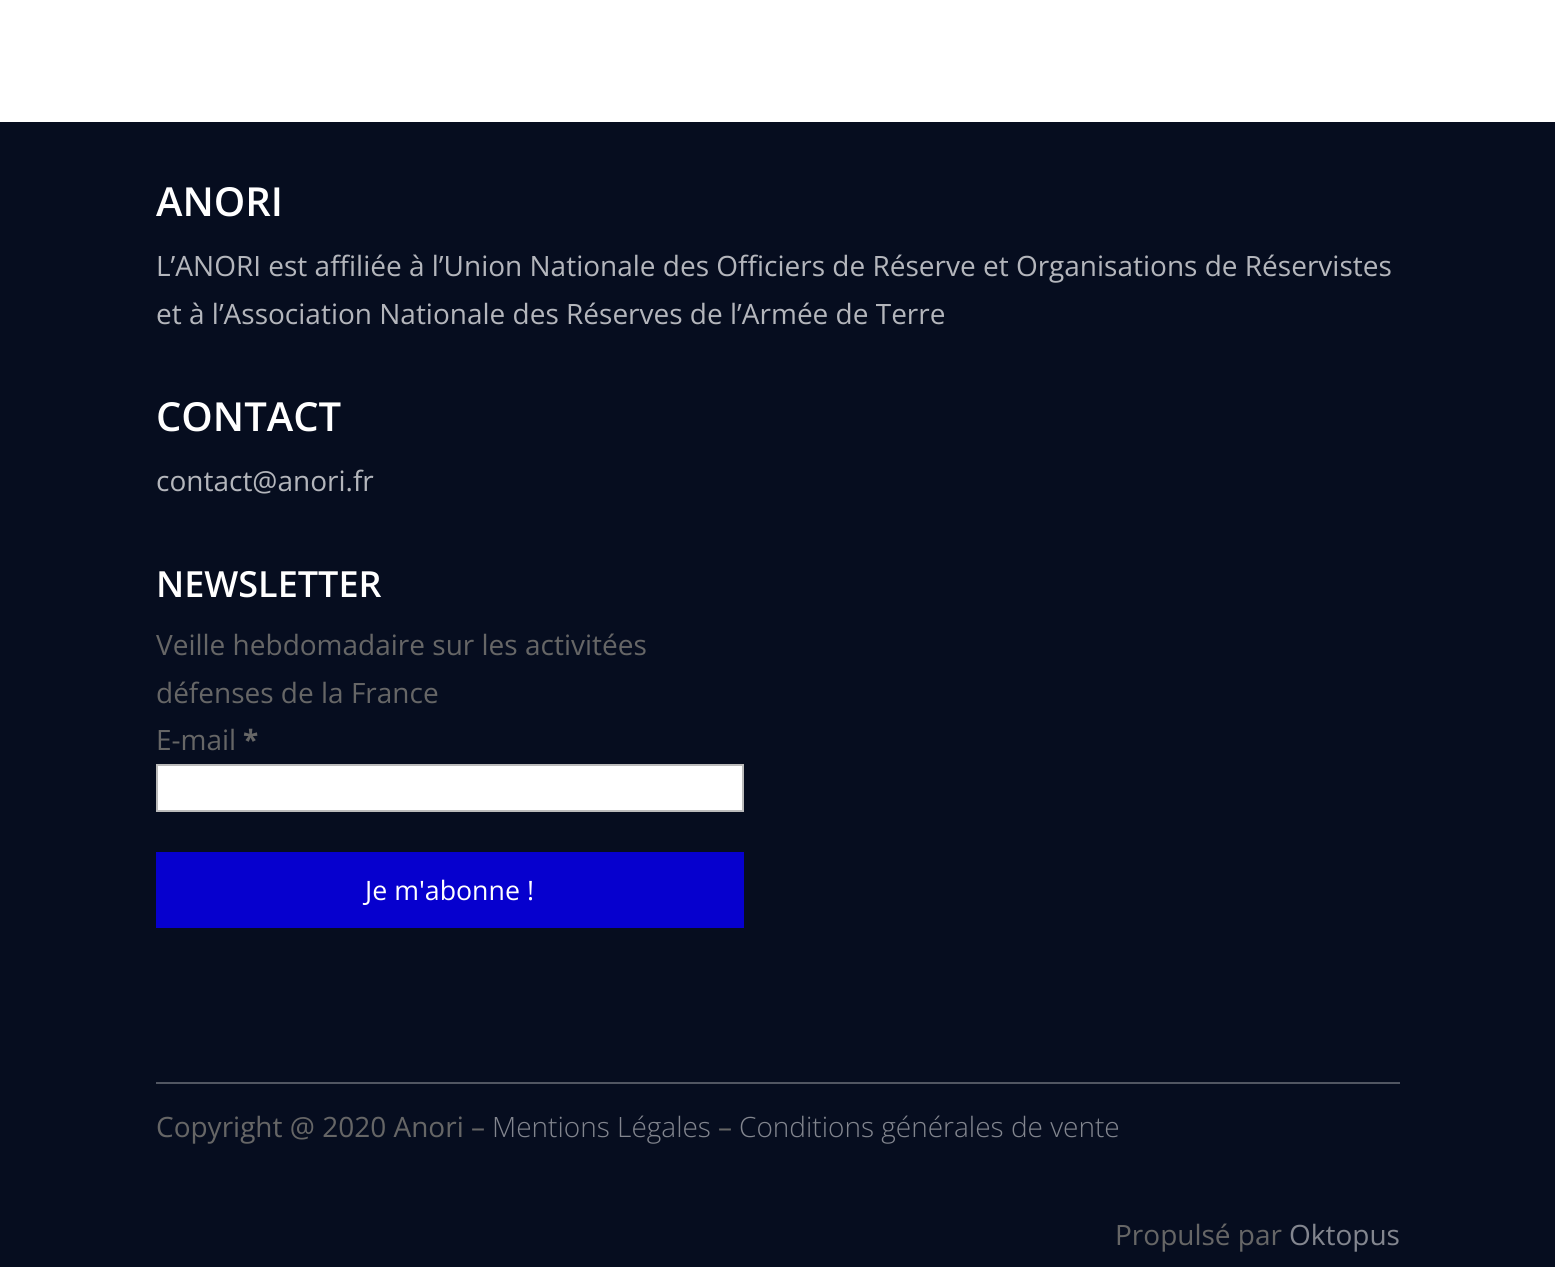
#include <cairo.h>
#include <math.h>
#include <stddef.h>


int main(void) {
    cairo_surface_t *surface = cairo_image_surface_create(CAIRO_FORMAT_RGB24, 1555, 1267);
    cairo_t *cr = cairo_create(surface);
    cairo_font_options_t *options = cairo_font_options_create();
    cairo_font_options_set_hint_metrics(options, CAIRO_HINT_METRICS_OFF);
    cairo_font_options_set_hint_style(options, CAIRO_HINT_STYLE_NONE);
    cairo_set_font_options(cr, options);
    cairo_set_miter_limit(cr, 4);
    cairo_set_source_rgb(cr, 1, 1, 1);
    cairo_paint(cr);
    cairo_set_source_rgb(cr, 0.024, 0.051, 0.122);
    cairo_rectangle(cr, 0, 122, 1555, 1145);
    cairo_fill(cr);
    cairo_select_font_face(cr, "Open Sans SemiBold", CAIRO_FONT_SLANT_NORMAL, CAIRO_FONT_WEIGHT_NORMAL);
    cairo_set_font_size(cr, 40);
    cairo_set_source_rgb(cr, 1, 1, 1);
    cairo_move_to(cr, 156, 216);
    cairo_show_text(cr, "ANORI");
    cairo_select_font_face(cr, "Open Sans", CAIRO_FONT_SLANT_NORMAL, CAIRO_FONT_WEIGHT_NORMAL);
    cairo_set_font_size(cr, 28);
    cairo_set_source_rgb(cr, 0.706, 0.714, 0.737);
    cairo_move_to(cr, 156, 276);
    cairo_show_text(cr, "L’ANORI est affiliée à l’Union Nationale des Officiers de Réserve et Organisations de Réservistes");
    cairo_move_to(cr, 156, 324);
    cairo_show_text(cr, "et à l’Association Nationale des Réserves de l’Armée de Terre");
    cairo_select_font_face(cr, "Open Sans SemiBold", CAIRO_FONT_SLANT_NORMAL, CAIRO_FONT_WEIGHT_NORMAL);
    cairo_set_font_size(cr, 40);
    cairo_set_source_rgb(cr, 1, 1, 1);
    cairo_move_to(cr, 156, 431);
    cairo_show_text(cr, "CONTACT");
    cairo_select_font_face(cr, "Open Sans", CAIRO_FONT_SLANT_NORMAL, CAIRO_FONT_WEIGHT_NORMAL);
    cairo_set_font_size(cr, 28);
    cairo_set_source_rgb(cr, 0.706, 0.714, 0.737);
    cairo_move_to(cr, 156, 491);
    cairo_show_text(cr, "contact@anori.fr");
    cairo_select_font_face(cr, "Open Sans SemiBold", CAIRO_FONT_SLANT_NORMAL, CAIRO_FONT_WEIGHT_NORMAL);
    cairo_set_font_size(cr, 36);
    cairo_set_source_rgb(cr, 1, 1, 1);
    cairo_move_to(cr, 156, 597);
    cairo_show_text(cr, "NEWSLETTER");
    cairo_select_font_face(cr, "Open Sans", CAIRO_FONT_SLANT_NORMAL, CAIRO_FONT_WEIGHT_NORMAL);
    cairo_set_font_size(cr, 28);
    cairo_set_source_rgb(cr, 0.4, 0.4, 0.4);
    cairo_move_to(cr, 156, 655);
    cairo_show_text(cr, "Veille hebdomadaire sur les activitées");
    cairo_move_to(cr, 156, 703);
    cairo_show_text(cr, "défenses de la France");
    cairo_move_to(cr, 156, 750);
    cairo_show_text(cr, "E-mail");
    cairo_select_font_face(cr, "Open Sans", CAIRO_FONT_SLANT_NORMAL, CAIRO_FONT_WEIGHT_BOLD);
    cairo_move_to(cr, 243, 750);
    cairo_show_text(cr, "*");
    cairo_set_source_rgb(cr, 1, 1, 1);
    cairo_rectangle(cr, 157, 765, 586, 46);
    cairo_fill_preserve(cr);
    cairo_set_source_rgb(cr, 0.733, 0.733, 0.733);
    cairo_stroke(cr);
    cairo_set_source_rgb(cr, 0.027, 0, 0.808);
    cairo_rectangle(cr, 156, 852, 588, 76);
    cairo_fill(cr);
    cairo_select_font_face(cr, "Open Sans", CAIRO_FONT_SLANT_NORMAL, CAIRO_FONT_WEIGHT_NORMAL);
    cairo_set_font_size(cr, 26.75);
    cairo_set_source_rgb(cr, 1, 1, 1);
    cairo_move_to(cr, 365, 900);
    cairo_show_text(cr, "Je m'abonne !");
    cairo_set_source_rgb(cr, 0.318, 0.337, 0.384);
    cairo_rectangle(cr, 156, 1082, 1244, 2);
    cairo_fill(cr);
    cairo_set_font_size(cr, 28);
    cairo_set_source_rgb(cr, 0.4, 0.4, 0.4);
    cairo_move_to(cr, 156, 1137);
    cairo_show_text(cr, "Copyright @ 2020 Anori –");
    cairo_select_font_face(cr, "Open Sans Light", CAIRO_FONT_SLANT_NORMAL, CAIRO_FONT_WEIGHT_NORMAL);
    cairo_set_source_rgb(cr, 0.514, 0.525, 0.561);
    cairo_move_to(cr, 492, 1137);
    cairo_show_text(cr, "Mentions Légales");
    cairo_select_font_face(cr, "Open Sans", CAIRO_FONT_SLANT_NORMAL, CAIRO_FONT_WEIGHT_NORMAL);
    cairo_set_source_rgb(cr, 0.4, 0.4, 0.4);
    cairo_move_to(cr, 718, 1137);
    cairo_show_text(cr, "–");
    cairo_select_font_face(cr, "Open Sans Light", CAIRO_FONT_SLANT_NORMAL, CAIRO_FONT_WEIGHT_NORMAL);
    cairo_set_source_rgb(cr, 0.514, 0.525, 0.561);
    cairo_move_to(cr, 739, 1137);
    cairo_show_text(cr, "Conditions générales de vente");
    cairo_select_font_face(cr, "Open Sans", CAIRO_FONT_SLANT_NORMAL, CAIRO_FONT_WEIGHT_NORMAL);
    cairo_set_source_rgb(cr, 0.4, 0.4, 0.4);
    cairo_move_to(cr, 1115, 1245);
    cairo_show_text(cr, "Propulsé par");
    cairo_set_source_rgb(cr, 0.514, 0.525, 0.561);
    cairo_move_to(cr, 1289, 1245);
    cairo_show_text(cr, "Oktopus");
    cairo_surface_write_to_png(surface, "page.png");
    cairo_font_options_destroy(options);
    cairo_destroy(cr);
    cairo_surface_destroy(surface);
    return 0;
}
